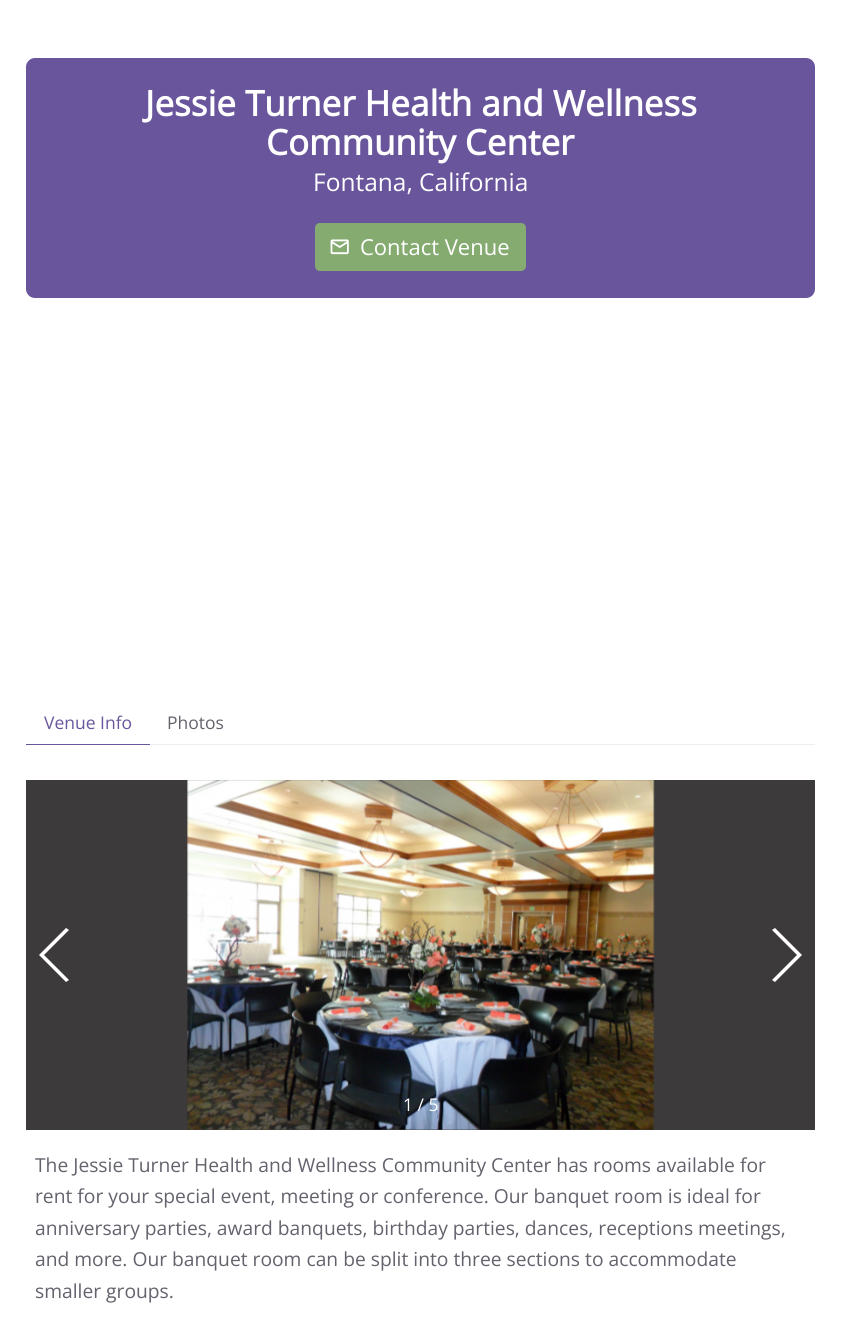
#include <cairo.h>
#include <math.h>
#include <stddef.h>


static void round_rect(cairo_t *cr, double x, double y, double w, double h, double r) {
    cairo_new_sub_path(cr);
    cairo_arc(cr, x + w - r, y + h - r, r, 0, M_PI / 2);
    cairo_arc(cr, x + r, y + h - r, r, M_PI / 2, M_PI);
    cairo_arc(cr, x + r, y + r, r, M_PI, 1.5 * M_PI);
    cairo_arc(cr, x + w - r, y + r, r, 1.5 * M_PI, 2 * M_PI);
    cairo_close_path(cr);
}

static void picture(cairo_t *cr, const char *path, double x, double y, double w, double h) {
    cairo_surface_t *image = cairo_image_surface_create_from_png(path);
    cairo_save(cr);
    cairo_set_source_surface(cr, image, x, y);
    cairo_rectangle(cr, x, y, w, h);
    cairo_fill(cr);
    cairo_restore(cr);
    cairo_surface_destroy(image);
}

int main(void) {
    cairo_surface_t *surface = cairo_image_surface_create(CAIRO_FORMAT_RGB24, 841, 1333);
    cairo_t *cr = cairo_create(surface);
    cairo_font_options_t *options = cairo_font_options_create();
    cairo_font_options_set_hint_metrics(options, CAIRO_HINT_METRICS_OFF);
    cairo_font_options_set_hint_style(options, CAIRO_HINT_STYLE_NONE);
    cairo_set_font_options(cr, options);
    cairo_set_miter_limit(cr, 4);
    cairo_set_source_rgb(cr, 1, 1, 1);
    cairo_paint(cr);
    cairo_set_source_rgb(cr, 0.412, 0.333, 0.612);
    round_rect(cr, 26, 58, 789, 240, 9);
    cairo_fill(cr);
    cairo_select_font_face(cr, "Open Sans", CAIRO_FONT_SLANT_NORMAL, CAIRO_FONT_WEIGHT_BOLD);
    cairo_set_font_size(cr, 35);
    cairo_set_source_rgb(cr, 1, 1, 1);
    cairo_move_to(cr, 145, 116);
    cairo_show_text(cr, "Jessie Turner Health and Wellness");
    cairo_move_to(cr, 266, 155);
    cairo_show_text(cr, "Community Center");
    cairo_select_font_face(cr, "Open Sans", CAIRO_FONT_SLANT_NORMAL, CAIRO_FONT_WEIGHT_NORMAL);
    cairo_set_font_size(cr, 24.5);
    cairo_move_to(cr, 313, 191);
    cairo_show_text(cr, "Fontana, California");
    cairo_set_source_rgb(cr, 0.522, 0.671, 0.439);
    round_rect(cr, 315, 223, 211, 48, 5);
    cairo_fill(cr);
    picture(cr, "img1.png", 330, 239, 19, 16);
    cairo_set_font_size(cr, 22);
    cairo_set_source_rgb(cr, 1, 1, 1);
    cairo_move_to(cr, 360, 255);
    cairo_show_text(cr, "Contact Venue");
    cairo_set_source_rgb(cr, 0.937, 0.937, 0.937);
    cairo_rectangle(cr, 150, 744, 665, 1);
    cairo_fill(cr);
    cairo_set_source_rgb(cr, 0.412, 0.337, 0.612);
    cairo_rectangle(cr, 26, 744, 124, 1);
    cairo_fill(cr);
    cairo_set_font_size(cr, 17.5);
    cairo_move_to(cr, 44, 729);
    cairo_show_text(cr, "Venue Info");
    cairo_set_source_rgb(cr, 0.388, 0.388, 0.427);
    cairo_move_to(cr, 167, 729);
    cairo_show_text(cr, "Photos");
    cairo_set_source_rgb(cr, 0.235, 0.227, 0.227);
    cairo_rectangle(cr, 26, 780, 789, 350);
    cairo_fill(cr);
    picture(cr, "img2.png", 187, 780, 468, 350);
    cairo_set_source_rgb(cr, 1, 1, 1);
    cairo_new_path(cr);
    cairo_move_to(cr, 39, 955);
    cairo_line_to(cr, 66, 928);
    cairo_line_to(cr, 69, 930);
    cairo_line_to(cr, 44, 955);
    cairo_line_to(cr, 69, 980);
    cairo_line_to(cr, 66, 982);
    cairo_close_path(cr);
    cairo_fill(cr);
    cairo_new_path(cr);
    cairo_move_to(cr, 802, 955);
    cairo_line_to(cr, 775, 982);
    cairo_line_to(cr, 772, 980);
    cairo_line_to(cr, 797, 955);
    cairo_line_to(cr, 772, 930);
    cairo_line_to(cr, 775, 928);
    cairo_close_path(cr);
    cairo_fill(cr);
    cairo_move_to(cr, 403, 1111);
    cairo_show_text(cr, "1 / 5");
    cairo_set_font_size(cr, 19.25);
    cairo_set_source_rgb(cr, 0.388, 0.388, 0.427);
    cairo_move_to(cr, 35, 1172);
    cairo_show_text(cr, "The Jessie Turner Health and Wellness Community Center has rooms available for");
    cairo_move_to(cr, 35, 1203);
    cairo_show_text(cr, "rent for your special event, meeting or conference. Our banquet room is ideal for");
    cairo_move_to(cr, 35, 1235);
    cairo_show_text(cr, "anniversary parties, award banquets, birthday parties, dances, receptions meetings,");
    cairo_move_to(cr, 35, 1266);
    cairo_show_text(cr, "and more. Our banquet room can be split into three sections to accommodate");
    cairo_move_to(cr, 35, 1298);
    cairo_show_text(cr, "smaller groups.");
    cairo_surface_write_to_png(surface, "page.png");
    cairo_font_options_destroy(options);
    cairo_destroy(cr);
    cairo_surface_destroy(surface);
    return 0;
}
